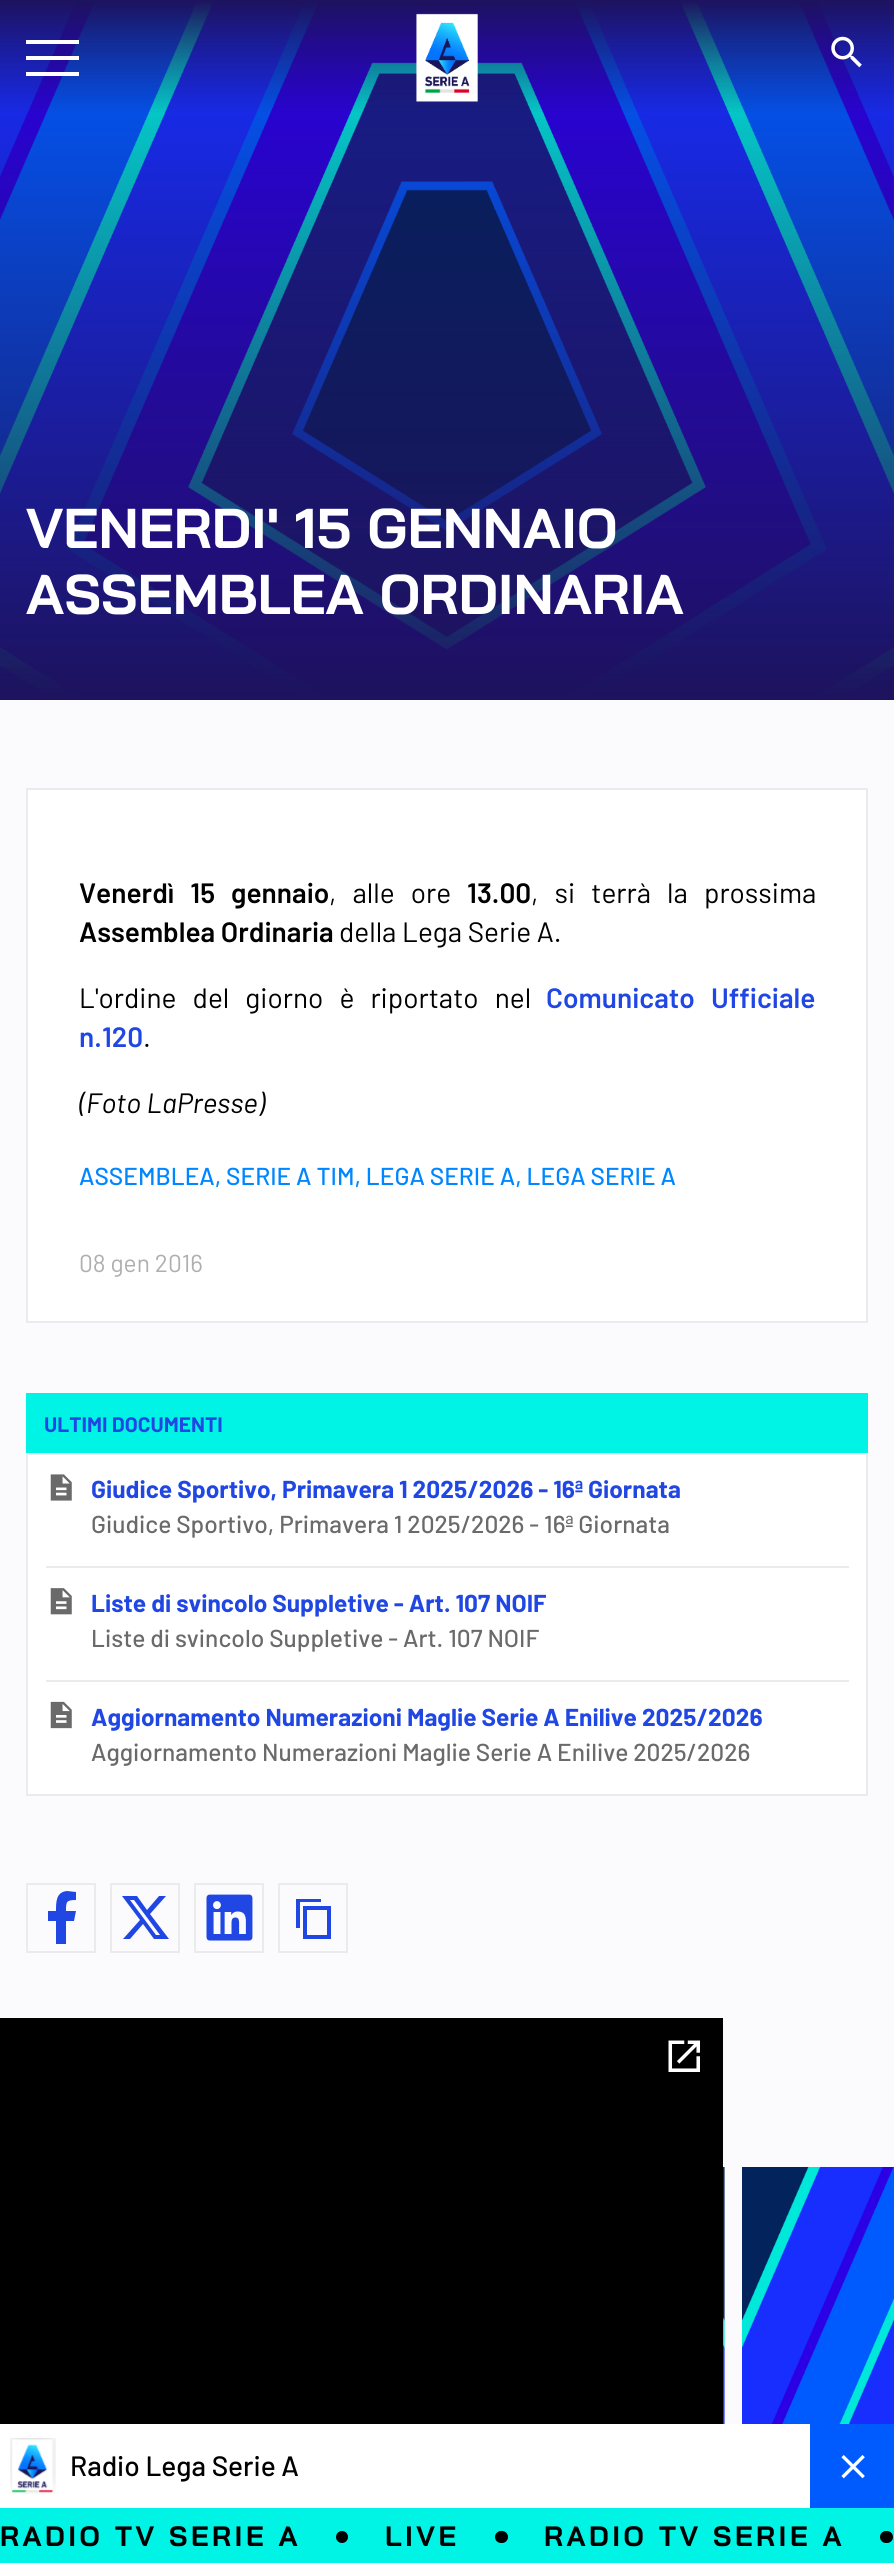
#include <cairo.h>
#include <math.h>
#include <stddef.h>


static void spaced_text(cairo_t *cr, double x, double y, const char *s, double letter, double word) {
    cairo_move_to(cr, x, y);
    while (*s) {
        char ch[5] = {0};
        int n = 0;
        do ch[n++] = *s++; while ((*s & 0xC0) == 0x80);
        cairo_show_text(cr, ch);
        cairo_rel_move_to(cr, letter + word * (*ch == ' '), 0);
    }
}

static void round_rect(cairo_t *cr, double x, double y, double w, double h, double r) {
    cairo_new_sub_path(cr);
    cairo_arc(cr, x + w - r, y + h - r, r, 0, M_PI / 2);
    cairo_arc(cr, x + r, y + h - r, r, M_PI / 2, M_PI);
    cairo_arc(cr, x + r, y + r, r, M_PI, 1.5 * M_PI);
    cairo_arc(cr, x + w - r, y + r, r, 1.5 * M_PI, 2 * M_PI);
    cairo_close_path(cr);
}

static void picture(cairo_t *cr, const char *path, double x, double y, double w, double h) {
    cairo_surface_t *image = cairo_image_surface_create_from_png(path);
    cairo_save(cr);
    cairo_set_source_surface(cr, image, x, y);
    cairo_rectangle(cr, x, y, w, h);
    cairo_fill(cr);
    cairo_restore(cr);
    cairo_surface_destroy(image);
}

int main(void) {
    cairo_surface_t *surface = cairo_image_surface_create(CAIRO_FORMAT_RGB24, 894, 2563);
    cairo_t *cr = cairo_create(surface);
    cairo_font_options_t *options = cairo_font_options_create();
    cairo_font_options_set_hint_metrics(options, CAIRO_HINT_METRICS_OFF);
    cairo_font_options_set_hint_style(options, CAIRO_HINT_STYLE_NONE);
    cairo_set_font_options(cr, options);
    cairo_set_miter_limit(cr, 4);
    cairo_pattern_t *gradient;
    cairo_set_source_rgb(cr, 0.984, 0.984, 0.992);
    cairo_paint(cr);
    picture(cr, "img3.png", 0, 1, 894, 695);
    gradient = cairo_pattern_create_linear(447, 700, 447, 0);
    cairo_pattern_add_color_stop_rgba(gradient, 0, 0.114, 0.071, 0.365, 1);
    cairo_pattern_add_color_stop_rgba(gradient, 1, 0.114, 0.071, 0.365, 0);
    cairo_set_source(cr, gradient);
    cairo_pattern_destroy(gradient);
    cairo_rectangle(cr, 0, 15, 894, 685);
    cairo_fill(cr);
    gradient = cairo_pattern_create_linear(447, 0, 447, 114);
    cairo_pattern_add_color_stop_rgba(gradient, 0, 0.114, 0.071, 0.365, 1);
    cairo_pattern_add_color_stop_rgba(gradient, 1, 0.114, 0.071, 0.365, 0);
    cairo_set_source(cr, gradient);
    cairo_pattern_destroy(gradient);
    cairo_rectangle(cr, 0, 0, 894, 112);
    cairo_fill(cr);
    cairo_set_source_rgb(cr, 1, 1, 1);
    cairo_rectangle(cr, 26, 40, 53, 4);
    cairo_fill(cr);
    cairo_rectangle(cr, 26, 56, 53, 4);
    cairo_fill(cr);
    cairo_rectangle(cr, 26, 72, 53, 4);
    cairo_fill(cr);
    picture(cr, "img1.png", 416, 13, 62, 89);
    picture(cr, "img2.png", 831, 36, 31, 32);
    cairo_select_font_face(cr, "Bai Jamjuree", CAIRO_FONT_SLANT_NORMAL, CAIRO_FONT_WEIGHT_BOLD);
    cairo_set_font_size(cr, 56);
    cairo_move_to(cr, 26, 548);
    cairo_show_text(cr, "VENERDI' 15 GENNAIO");
    cairo_move_to(cr, 26, 614);
    cairo_show_text(cr, "ASSEMBLEA ORDINARIA");
    cairo_rectangle(cr, 27, 789, 840, 533);
    cairo_fill_preserve(cr);
    cairo_set_source_rgb(cr, 0.914, 0.918, 0.922);
    cairo_stroke(cr);
    cairo_select_font_face(cr, "Barlow SemiBold", CAIRO_FONT_SLANT_NORMAL, CAIRO_FONT_WEIGHT_NORMAL);
    cairo_set_font_size(cr, 28);
    cairo_set_source_rgb(cr, 0, 0, 0);
    spaced_text(cr, 79, 903, "Venerdì 15 gennaio", 0, 10.5);
    cairo_select_font_face(cr, "Barlow", CAIRO_FONT_SLANT_NORMAL, CAIRO_FONT_WEIGHT_NORMAL);
    spaced_text(cr, 329, 903, ", alle ore", 0, 10.5);
    cairo_select_font_face(cr, "Barlow SemiBold", CAIRO_FONT_SLANT_NORMAL, CAIRO_FONT_WEIGHT_NORMAL);
    cairo_move_to(cr, 467, 903);
    cairo_show_text(cr, "13.00");
    cairo_select_font_face(cr, "Barlow", CAIRO_FONT_SLANT_NORMAL, CAIRO_FONT_WEIGHT_NORMAL);
    spaced_text(cr, 531, 903, ", si terrà la prossima", 0, 10.5);
    cairo_select_font_face(cr, "Barlow SemiBold", CAIRO_FONT_SLANT_NORMAL, CAIRO_FONT_WEIGHT_NORMAL);
    cairo_move_to(cr, 79, 942);
    cairo_show_text(cr, "Assemblea Ordinaria");
    cairo_select_font_face(cr, "Barlow", CAIRO_FONT_SLANT_NORMAL, CAIRO_FONT_WEIGHT_NORMAL);
    cairo_move_to(cr, 339, 942);
    cairo_show_text(cr, "della Lega Serie A.");
    spaced_text(cr, 79, 1008, "L'ordine del giorno è riportato nel", 0, 10.5);
    cairo_select_font_face(cr, "Barlow SemiBold", CAIRO_FONT_SLANT_NORMAL, CAIRO_FONT_WEIGHT_NORMAL);
    cairo_set_source_rgb(cr, 0.125, 0.278, 0.89);
    spaced_text(cr, 546, 1008, "Comunicato Ufficiale", 0, 10.5);
    cairo_move_to(cr, 79, 1047);
    cairo_show_text(cr, "n.120");
    cairo_select_font_face(cr, "Barlow", CAIRO_FONT_SLANT_NORMAL, CAIRO_FONT_WEIGHT_NORMAL);
    cairo_set_source_rgb(cr, 0, 0, 0);
    cairo_move_to(cr, 143, 1047);
    cairo_show_text(cr, ".");
    cairo_select_font_face(cr, "Barlow", CAIRO_FONT_SLANT_ITALIC, CAIRO_FONT_WEIGHT_NORMAL);
    cairo_move_to(cr, 79, 1113);
    cairo_show_text(cr, "(Foto LaPresse)");
    cairo_select_font_face(cr, "Barlow Medium", CAIRO_FONT_SLANT_NORMAL, CAIRO_FONT_WEIGHT_NORMAL);
    cairo_set_font_size(cr, 24.5);
    cairo_set_source_rgb(cr, 0, 0.529, 1);
    cairo_move_to(cr, 79, 1185);
    cairo_show_text(cr, "ASSEMBLEA, SERIE A TIM, LEGA SERIE A, LEGA SERIE A");
    cairo_select_font_face(cr, "Barlow", CAIRO_FONT_SLANT_NORMAL, CAIRO_FONT_WEIGHT_NORMAL);
    cairo_set_source_rgb(cr, 0.686, 0.686, 0.686);
    cairo_move_to(cr, 79, 1272);
    cairo_show_text(cr, "08 gen 2016");
    cairo_set_source_rgb(cr, 0, 0.957, 0.902);
    cairo_rectangle(cr, 26, 1393, 842, 60);
    cairo_fill(cr);
    cairo_select_font_face(cr, "Barlow", CAIRO_FONT_SLANT_NORMAL, CAIRO_FONT_WEIGHT_BOLD);
    cairo_set_font_size(cr, 21);
    cairo_set_source_rgb(cr, 0.125, 0.278, 0.89);
    cairo_move_to(cr, 44, 1432);
    cairo_show_text(cr, "ULTIMI DOCUMENTI");
    cairo_set_source_rgb(cr, 1, 1, 1);
    cairo_rectangle(cr, 27, 1454, 840, 341);
    cairo_fill_preserve(cr);
    cairo_set_source_rgb(cr, 0.914, 0.918, 0.922);
    cairo_stroke(cr);
    cairo_rectangle(cr, 46, 1566, 803, 2);
    cairo_fill(cr);
    picture(cr, "img4.png", 50, 1474, 22, 27);
    cairo_set_font_size(cr, 24.5);
    cairo_set_source_rgb(cr, 0.125, 0.278, 0.89);
    cairo_move_to(cr, 91, 1498);
    cairo_show_text(cr, "Giudice Sportivo, Primavera 1 2025/2026 - 16ª Giornata");
    cairo_select_font_face(cr, "Barlow Medium", CAIRO_FONT_SLANT_NORMAL, CAIRO_FONT_WEIGHT_NORMAL);
    cairo_set_source_rgb(cr, 0.416, 0.416, 0.416);
    cairo_move_to(cr, 91, 1533);
    cairo_show_text(cr, "Giudice Sportivo, Primavera 1 2025/2026 - 16ª Giornata");
    cairo_set_source_rgb(cr, 0.914, 0.918, 0.922);
    cairo_rectangle(cr, 46, 1680, 803, 2);
    cairo_fill(cr);
    picture(cr, "img5.png", 50, 1588, 22, 27);
    cairo_save(cr);
    cairo_rectangle(cr, 91, 1586, 455, 35);
    cairo_clip(cr);
    cairo_select_font_face(cr, "Barlow", CAIRO_FONT_SLANT_NORMAL, CAIRO_FONT_WEIGHT_BOLD);
    cairo_set_source_rgb(cr, 0.125, 0.278, 0.89);
    cairo_move_to(cr, 91, 1612);
    cairo_show_text(cr, "Liste di svincolo Suppletive - Art. 107 NOIF");
    cairo_restore(cr);
    cairo_set_source_rgb(cr, 0.416, 0.416, 0.416);
    cairo_move_to(cr, 91, 1647);
    cairo_show_text(cr, "Liste di svincolo Suppletive - Art. 107 NOIF");
    picture(cr, "img6.png", 50, 1701, 22, 28);
    cairo_select_font_face(cr, "Barlow", CAIRO_FONT_SLANT_NORMAL, CAIRO_FONT_WEIGHT_BOLD);
    cairo_set_source_rgb(cr, 0.125, 0.278, 0.89);
    cairo_move_to(cr, 91, 1726);
    cairo_show_text(cr, "Aggiornamento Numerazioni Maglie Serie A Enilive 2025/2026");
    cairo_select_font_face(cr, "Barlow Medium", CAIRO_FONT_SLANT_NORMAL, CAIRO_FONT_WEIGHT_NORMAL);
    cairo_set_source_rgb(cr, 0.416, 0.416, 0.416);
    cairo_move_to(cr, 91, 1761);
    cairo_show_text(cr, "Aggiornamento Numerazioni Maglie Serie A Enilive 2025/2026");
    cairo_rectangle(cr, 27, 1884, 68, 68);
    cairo_set_source_rgb(cr, 0.914, 0.918, 0.922);
    cairo_stroke(cr);
    cairo_set_source_rgb(cr, 0.125, 0.278, 0.89);
    cairo_new_path(cr);
    cairo_move_to(cr, 74, 1921);
    cairo_line_to(cr, 76, 1911);
    cairo_line_to(cr, 66, 1911);
    cairo_curve_to(cr, 66, 1902, 66, 1900, 76, 1900);
    cairo_line_to(cr, 76, 1892);
    cairo_line_to(cr, 67, 1891);
    cairo_curve_to(cr, 56, 1892, 56, 1902, 56, 1911);
    cairo_line_to(cr, 48, 1911);
    cairo_line_to(cr, 48, 1921);
    cairo_line_to(cr, 56, 1921);
    cairo_line_to(cr, 56, 1944);
    cairo_line_to(cr, 66, 1944);
    cairo_line_to(cr, 66, 1921);
    cairo_close_path(cr);
    cairo_fill(cr);
    cairo_rectangle(cr, 111, 1884, 68, 68);
    cairo_set_source_rgb(cr, 0.914, 0.918, 0.922);
    cairo_stroke(cr);
    cairo_set_source_rgb(cr, 0.125, 0.278, 0.89);
    cairo_new_path(cr);
    cairo_move_to(cr, 159, 1896);
    cairo_line_to(cr, 166, 1896);
    cairo_line_to(cr, 150, 1914);
    cairo_line_to(cr, 169, 1939);
    cairo_line_to(cr, 154, 1939);
    cairo_line_to(cr, 143, 1924);
    cairo_line_to(cr, 130, 1939);
    cairo_line_to(cr, 123, 1939);
    cairo_line_to(cr, 140, 1920);
    cairo_line_to(cr, 122, 1896);
    cairo_line_to(cr, 137, 1896);
    cairo_line_to(cr, 147, 1910);
    cairo_close_path(cr);
    cairo_move_to(cr, 156, 1935);
    cairo_line_to(cr, 160, 1935);
    cairo_line_to(cr, 134, 1900);
    cairo_line_to(cr, 130, 1900);
    cairo_close_path(cr);
    cairo_fill(cr);
    cairo_rectangle(cr, 195, 1884, 68, 68);
    cairo_set_source_rgb(cr, 0.914, 0.918, 0.922);
    cairo_stroke(cr);
    picture(cr, "img7.png", 206, 1894, 47, 47);
    cairo_rectangle(cr, 279, 1884, 68, 68);
    cairo_stroke(cr);
    cairo_set_source_rgb(cr, 0.125, 0.278, 0.89);
    cairo_new_path(cr);
    cairo_move_to(cr, 321, 1899);
    cairo_line_to(cr, 296, 1899);
    cairo_line_to(cr, 296, 1928);
    cairo_line_to(cr, 300, 1928);
    cairo_line_to(cr, 300, 1902);
    cairo_line_to(cr, 321, 1902);
    cairo_close_path(cr);
    cairo_move_to(cr, 331, 1906);
    cairo_line_to(cr, 303, 1906);
    cairo_line_to(cr, 303, 1939);
    cairo_line_to(cr, 331, 1939);
    cairo_close_path(cr);
    cairo_move_to(cr, 327, 1935);
    cairo_line_to(cr, 307, 1935);
    cairo_line_to(cr, 307, 1910);
    cairo_line_to(cr, 327, 1910);
    cairo_close_path(cr);
    cairo_fill(cr);
    picture(cr, "img8.png", 723, 2167, 2, 257);
    picture(cr, "img9.png", 742, 2167, 152, 257);
    cairo_set_source_rgb(cr, 1, 1, 1);
    cairo_rectangle(cr, 0, 2424, 810, 84);
    cairo_fill(cr);
    cairo_set_source_rgb(cr, 0, 0, 0);
    cairo_rectangle(cr, 0, 2018, 723, 406);
    cairo_fill(cr);
    picture(cr, "img10.png", 668, 2040, 32, 32);
    picture(cr, "img11.png", 10, 2438, 46, 56);
    cairo_set_font_size(cr, 28);
    cairo_move_to(cr, 70, 2476);
    cairo_show_text(cr, "Radio Lega Serie A");
    cairo_set_source_rgb(cr, 0, 0.357, 1);
    cairo_rectangle(cr, 810, 2424, 84, 84);
    cairo_fill(cr);
    picture(cr, "img12.png", 841, 2455, 24, 24);
    cairo_set_source_rgb(cr, 0, 0.957, 0.902);
    cairo_rectangle(cr, 0, 2508, 894, 55);
    cairo_fill(cr);
    cairo_select_font_face(cr, "Bai Jamjuree", CAIRO_FONT_SLANT_NORMAL, CAIRO_FONT_WEIGHT_BOLD);
    cairo_set_source_rgb(cr, 0, 0, 0);
    spaced_text(cr, 0, 2546, "RADIO TV SERIE A", 3.5, 0);
    cairo_new_path(cr);
    cairo_arc(cr, 342, 2537, 6, 0, 2 * M_PI);
    cairo_fill(cr);
    spaced_text(cr, 385, 2546, "LIVE", 3.5, 0);
    round_rect(cr, 495, 2531, 13, 12, 6);
    cairo_fill(cr);
    spaced_text(cr, 544, 2546, "RADIO TV SERIE A", 3.5, 0);
    round_rect(cr, 880, 2531, 13, 12, 6);
    cairo_fill(cr);
    cairo_surface_write_to_png(surface, "page.png");
    cairo_font_options_destroy(options);
    cairo_destroy(cr);
    cairo_surface_destroy(surface);
    return 0;
}
